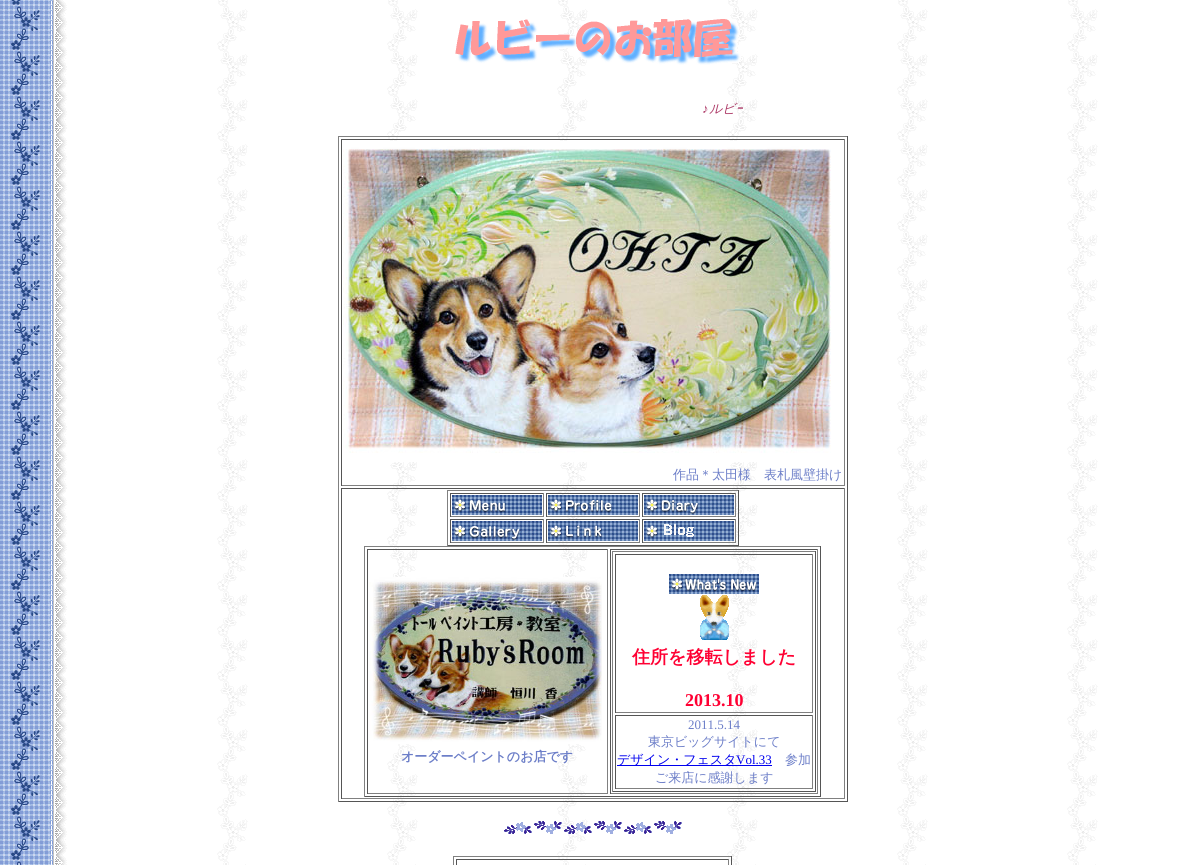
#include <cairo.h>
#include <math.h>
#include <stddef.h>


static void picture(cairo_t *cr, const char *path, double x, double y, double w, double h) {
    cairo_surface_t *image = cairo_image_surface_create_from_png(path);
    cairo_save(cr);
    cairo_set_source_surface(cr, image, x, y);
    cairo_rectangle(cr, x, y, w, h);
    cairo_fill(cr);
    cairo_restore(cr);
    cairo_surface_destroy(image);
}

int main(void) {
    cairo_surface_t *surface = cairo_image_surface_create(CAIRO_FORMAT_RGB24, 1185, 865);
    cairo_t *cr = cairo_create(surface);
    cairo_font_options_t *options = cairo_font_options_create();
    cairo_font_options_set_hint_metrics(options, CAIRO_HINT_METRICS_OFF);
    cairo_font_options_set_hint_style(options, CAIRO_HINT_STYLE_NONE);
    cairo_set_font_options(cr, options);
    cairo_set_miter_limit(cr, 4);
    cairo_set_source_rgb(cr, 1, 1, 1);
    cairo_paint(cr);
    picture(cr, "img1.png", 0, 0, 1098, 865);
    picture(cr, "img2.png", 455, 19, 286, 46);
    cairo_select_font_face(cr, "Liberation Serif", CAIRO_FONT_SLANT_ITALIC, CAIRO_FONT_WEIGHT_BOLD);
    cairo_set_font_size(cr, 13);
    cairo_set_source_rgb(cr, 0.682, 0.235, 0.412);
    cairo_move_to(cr, 702, 113);
    cairo_show_text(cr, "♪");
    cairo_save(cr);
    cairo_rectangle(cr, 443, 100, 300, 20);
    cairo_clip(cr);
    cairo_select_font_face(cr, "WenQuanYi Zen Hei Medium", CAIRO_FONT_SLANT_ITALIC, CAIRO_FONT_WEIGHT_NORMAL);
    cairo_move_to(cr, 709, 113);
    cairo_show_text(cr, "ルビー");
    cairo_restore(cr);
    cairo_set_source_rgb(cr, 0.502, 0.502, 0.502);
    cairo_rectangle(cr, 338, 136, 510, 1);
    cairo_fill(cr);
    cairo_set_source_rgb(cr, 0.333, 0.333, 0.333);
    cairo_rectangle(cr, 847, 136, 1, 666);
    cairo_fill(cr);
    cairo_rectangle(cr, 338, 801, 510, 1);
    cairo_fill(cr);
    cairo_set_source_rgb(cr, 0.502, 0.502, 0.502);
    cairo_rectangle(cr, 338, 136, 1, 666);
    cairo_fill(cr);
    cairo_set_source_rgb(cr, 0.333, 0.333, 0.333);
    cairo_rectangle(cr, 341, 139, 504, 1);
    cairo_fill(cr);
    cairo_set_source_rgb(cr, 0.502, 0.502, 0.502);
    cairo_rectangle(cr, 844, 139, 1, 347);
    cairo_fill(cr);
    cairo_rectangle(cr, 341, 485, 504, 1);
    cairo_fill(cr);
    cairo_set_source_rgb(cr, 0.333, 0.333, 0.333);
    cairo_rectangle(cr, 341, 139, 1, 347);
    cairo_fill(cr);
    picture(cr, "img3.png", 343, 141, 488, 321);
    cairo_select_font_face(cr, "WenQuanYi Zen Hei Medium", CAIRO_FONT_SLANT_NORMAL, CAIRO_FONT_WEIGHT_NORMAL);
    cairo_set_source_rgb(cr, 0.424, 0.494, 0.784);
    cairo_move_to(cr, 673, 479);
    cairo_show_text(cr, "作品＊太田様　表札風壁掛け");
    cairo_set_source_rgb(cr, 0.333, 0.333, 0.333);
    cairo_rectangle(cr, 341, 488, 504, 1);
    cairo_fill(cr);
    cairo_set_source_rgb(cr, 0.502, 0.502, 0.502);
    cairo_rectangle(cr, 844, 488, 1, 311);
    cairo_fill(cr);
    cairo_rectangle(cr, 341, 798, 504, 1);
    cairo_fill(cr);
    cairo_set_source_rgb(cr, 0.333, 0.333, 0.333);
    cairo_rectangle(cr, 341, 488, 1, 311);
    cairo_fill(cr);
    cairo_set_source_rgb(cr, 0.502, 0.502, 0.502);
    cairo_rectangle(cr, 447, 490, 292, 1);
    cairo_fill(cr);
    cairo_set_source_rgb(cr, 0.333, 0.333, 0.333);
    cairo_rectangle(cr, 738, 490, 1, 56);
    cairo_fill(cr);
    cairo_rectangle(cr, 447, 545, 292, 1);
    cairo_fill(cr);
    cairo_set_source_rgb(cr, 0.502, 0.502, 0.502);
    cairo_rectangle(cr, 447, 490, 1, 56);
    cairo_fill(cr);
    cairo_set_source_rgb(cr, 0.333, 0.333, 0.333);
    cairo_rectangle(cr, 450, 493, 94, 1);
    cairo_fill(cr);
    cairo_set_source_rgb(cr, 0.502, 0.502, 0.502);
    cairo_rectangle(cr, 543, 493, 1, 24);
    cairo_fill(cr);
    cairo_rectangle(cr, 450, 516, 94, 1);
    cairo_fill(cr);
    cairo_set_source_rgb(cr, 0.333, 0.333, 0.333);
    cairo_rectangle(cr, 450, 493, 1, 24);
    cairo_fill(cr);
    picture(cr, "img4.png", 452, 495, 90, 20);
    cairo_rectangle(cr, 546, 493, 94, 1);
    cairo_fill(cr);
    cairo_set_source_rgb(cr, 0.502, 0.502, 0.502);
    cairo_rectangle(cr, 639, 493, 1, 24);
    cairo_fill(cr);
    cairo_rectangle(cr, 546, 516, 94, 1);
    cairo_fill(cr);
    cairo_set_source_rgb(cr, 0.333, 0.333, 0.333);
    cairo_rectangle(cr, 546, 493, 1, 24);
    cairo_fill(cr);
    picture(cr, "img5.png", 548, 495, 90, 20);
    cairo_rectangle(cr, 642, 493, 94, 1);
    cairo_fill(cr);
    cairo_set_source_rgb(cr, 0.502, 0.502, 0.502);
    cairo_rectangle(cr, 735, 493, 1, 24);
    cairo_fill(cr);
    cairo_rectangle(cr, 642, 516, 94, 1);
    cairo_fill(cr);
    cairo_set_source_rgb(cr, 0.333, 0.333, 0.333);
    cairo_rectangle(cr, 642, 493, 1, 24);
    cairo_fill(cr);
    picture(cr, "img6.png", 644, 495, 90, 20);
    cairo_rectangle(cr, 450, 519, 94, 1);
    cairo_fill(cr);
    cairo_set_source_rgb(cr, 0.502, 0.502, 0.502);
    cairo_rectangle(cr, 543, 519, 1, 24);
    cairo_fill(cr);
    cairo_rectangle(cr, 450, 542, 94, 1);
    cairo_fill(cr);
    cairo_set_source_rgb(cr, 0.333, 0.333, 0.333);
    cairo_rectangle(cr, 450, 519, 1, 24);
    cairo_fill(cr);
    picture(cr, "img7.png", 452, 521, 90, 20);
    cairo_rectangle(cr, 546, 519, 94, 1);
    cairo_fill(cr);
    cairo_set_source_rgb(cr, 0.502, 0.502, 0.502);
    cairo_rectangle(cr, 639, 519, 1, 24);
    cairo_fill(cr);
    cairo_rectangle(cr, 546, 542, 94, 1);
    cairo_fill(cr);
    cairo_set_source_rgb(cr, 0.333, 0.333, 0.333);
    cairo_rectangle(cr, 546, 519, 1, 24);
    cairo_fill(cr);
    picture(cr, "img8.png", 548, 521, 90, 20);
    cairo_rectangle(cr, 642, 519, 94, 1);
    cairo_fill(cr);
    cairo_set_source_rgb(cr, 0.502, 0.502, 0.502);
    cairo_rectangle(cr, 735, 519, 1, 24);
    cairo_fill(cr);
    cairo_rectangle(cr, 642, 542, 94, 1);
    cairo_fill(cr);
    cairo_set_source_rgb(cr, 0.333, 0.333, 0.333);
    cairo_rectangle(cr, 642, 519, 1, 24);
    cairo_fill(cr);
    picture(cr, "img9.png", 644, 521, 90, 20);
    cairo_set_source_rgb(cr, 0.502, 0.502, 0.502);
    cairo_rectangle(cr, 364, 546, 457, 1);
    cairo_fill(cr);
    cairo_set_source_rgb(cr, 0.333, 0.333, 0.333);
    cairo_rectangle(cr, 820, 546, 1, 251);
    cairo_fill(cr);
    cairo_rectangle(cr, 364, 796, 457, 1);
    cairo_fill(cr);
    cairo_set_source_rgb(cr, 0.502, 0.502, 0.502);
    cairo_rectangle(cr, 364, 546, 1, 251);
    cairo_fill(cr);
    cairo_set_source_rgb(cr, 0.333, 0.333, 0.333);
    cairo_rectangle(cr, 367, 549, 241, 1);
    cairo_fill(cr);
    cairo_set_source_rgb(cr, 0.502, 0.502, 0.502);
    cairo_rectangle(cr, 607, 549, 1, 245);
    cairo_fill(cr);
    cairo_rectangle(cr, 367, 793, 241, 1);
    cairo_fill(cr);
    cairo_set_source_rgb(cr, 0.333, 0.333, 0.333);
    cairo_rectangle(cr, 367, 549, 1, 245);
    cairo_fill(cr);
    picture(cr, "img10.png", 369, 577, 233, 167);
    cairo_select_font_face(cr, "WenQuanYi Zen Hei", CAIRO_FONT_SLANT_NORMAL, CAIRO_FONT_WEIGHT_BOLD);
    cairo_set_source_rgb(cr, 0.424, 0.494, 0.784);
    cairo_move_to(cr, 401, 761);
    cairo_show_text(cr, "オーダーペイントのお店です");
    cairo_set_source_rgb(cr, 0.333, 0.333, 0.333);
    cairo_rectangle(cr, 610, 549, 208, 1);
    cairo_fill(cr);
    cairo_set_source_rgb(cr, 0.502, 0.502, 0.502);
    cairo_rectangle(cr, 817, 549, 1, 245);
    cairo_fill(cr);
    cairo_rectangle(cr, 610, 793, 208, 1);
    cairo_fill(cr);
    cairo_set_source_rgb(cr, 0.333, 0.333, 0.333);
    cairo_rectangle(cr, 610, 549, 1, 245);
    cairo_fill(cr);
    cairo_set_source_rgb(cr, 0.502, 0.502, 0.502);
    cairo_rectangle(cr, 612, 551, 204, 1);
    cairo_fill(cr);
    cairo_set_source_rgb(cr, 0.333, 0.333, 0.333);
    cairo_rectangle(cr, 815, 551, 1, 241);
    cairo_fill(cr);
    cairo_rectangle(cr, 612, 791, 204, 1);
    cairo_fill(cr);
    cairo_set_source_rgb(cr, 0.502, 0.502, 0.502);
    cairo_rectangle(cr, 612, 551, 1, 241);
    cairo_fill(cr);
    cairo_set_source_rgb(cr, 0.333, 0.333, 0.333);
    cairo_rectangle(cr, 615, 554, 198, 1);
    cairo_fill(cr);
    cairo_set_source_rgb(cr, 0.502, 0.502, 0.502);
    cairo_rectangle(cr, 812, 554, 1, 159);
    cairo_fill(cr);
    cairo_rectangle(cr, 615, 712, 198, 1);
    cairo_fill(cr);
    cairo_set_source_rgb(cr, 0.333, 0.333, 0.333);
    cairo_rectangle(cr, 615, 554, 1, 159);
    cairo_fill(cr);
    picture(cr, "img11.png", 669, 574, 90, 20);
    picture(cr, "img12.png", 700, 595, 29, 45);
    cairo_set_font_size(cr, 18);
    cairo_set_source_rgb(cr, 1, 0, 0.2);
    cairo_move_to(cr, 632, 663);
    cairo_show_text(cr, "住所を移転しました");
    cairo_select_font_face(cr, "Liberation Serif", CAIRO_FONT_SLANT_NORMAL, CAIRO_FONT_WEIGHT_BOLD);
    cairo_move_to(cr, 685, 706);
    cairo_show_text(cr, "2013.10");
    cairo_set_source_rgb(cr, 0.333, 0.333, 0.333);
    cairo_rectangle(cr, 615, 715, 198, 1);
    cairo_fill(cr);
    cairo_set_source_rgb(cr, 0.502, 0.502, 0.502);
    cairo_rectangle(cr, 812, 715, 1, 74);
    cairo_fill(cr);
    cairo_rectangle(cr, 615, 788, 198, 1);
    cairo_fill(cr);
    cairo_set_source_rgb(cr, 0.333, 0.333, 0.333);
    cairo_rectangle(cr, 615, 715, 1, 74);
    cairo_fill(cr);
    cairo_select_font_face(cr, "Liberation Serif", CAIRO_FONT_SLANT_NORMAL, CAIRO_FONT_WEIGHT_NORMAL);
    cairo_set_font_size(cr, 13);
    cairo_set_source_rgb(cr, 0.424, 0.494, 0.784);
    cairo_move_to(cr, 688, 729);
    cairo_show_text(cr, "2011.5.14");
    cairo_select_font_face(cr, "WenQuanYi Zen Hei Medium", CAIRO_FONT_SLANT_NORMAL, CAIRO_FONT_WEIGHT_NORMAL);
    cairo_move_to(cr, 648, 746);
    cairo_show_text(cr, "東京ビッグサイトにて");
    cairo_set_source_rgb(cr, 0, 0, 0.933);
    cairo_rectangle(cr, 617, 765, 155, 1);
    cairo_fill(cr);
    cairo_move_to(cr, 617, 764);
    cairo_show_text(cr, "デザイン・フェスタ");
    cairo_select_font_face(cr, "Liberation Serif", CAIRO_FONT_SLANT_NORMAL, CAIRO_FONT_WEIGHT_NORMAL);
    cairo_move_to(cr, 736, 764);
    cairo_show_text(cr, "Vol.33");
    cairo_select_font_face(cr, "WenQuanYi Zen Hei Medium", CAIRO_FONT_SLANT_NORMAL, CAIRO_FONT_WEIGHT_NORMAL);
    cairo_set_source_rgb(cr, 0.424, 0.494, 0.784);
    cairo_move_to(cr, 785, 764);
    cairo_show_text(cr, "参加");
    cairo_move_to(cr, 655, 782);
    cairo_show_text(cr, "ご来店に感謝します");
    picture(cr, "img13.png", 504, 821, 178, 13);
    cairo_set_source_rgb(cr, 0.502, 0.502, 0.502);
    cairo_rectangle(cr, 453, 856, 279, 1);
    cairo_fill(cr);
    cairo_set_source_rgb(cr, 0.333, 0.333, 0.333);
    cairo_rectangle(cr, 731, 856, 1, 9);
    cairo_fill(cr);
    cairo_set_source_rgb(cr, 0.502, 0.502, 0.502);
    cairo_rectangle(cr, 453, 856, 1, 9);
    cairo_fill(cr);
    cairo_set_source_rgb(cr, 0.333, 0.333, 0.333);
    cairo_rectangle(cr, 456, 859, 273, 1);
    cairo_fill(cr);
    cairo_set_source_rgb(cr, 0.502, 0.502, 0.502);
    cairo_rectangle(cr, 728, 859, 1, 6);
    cairo_fill(cr);
    cairo_set_source_rgb(cr, 0.333, 0.333, 0.333);
    cairo_rectangle(cr, 456, 859, 1, 6);
    cairo_fill(cr);
    cairo_surface_write_to_png(surface, "page.png");
    cairo_font_options_destroy(options);
    cairo_destroy(cr);
    cairo_surface_destroy(surface);
    return 0;
}
